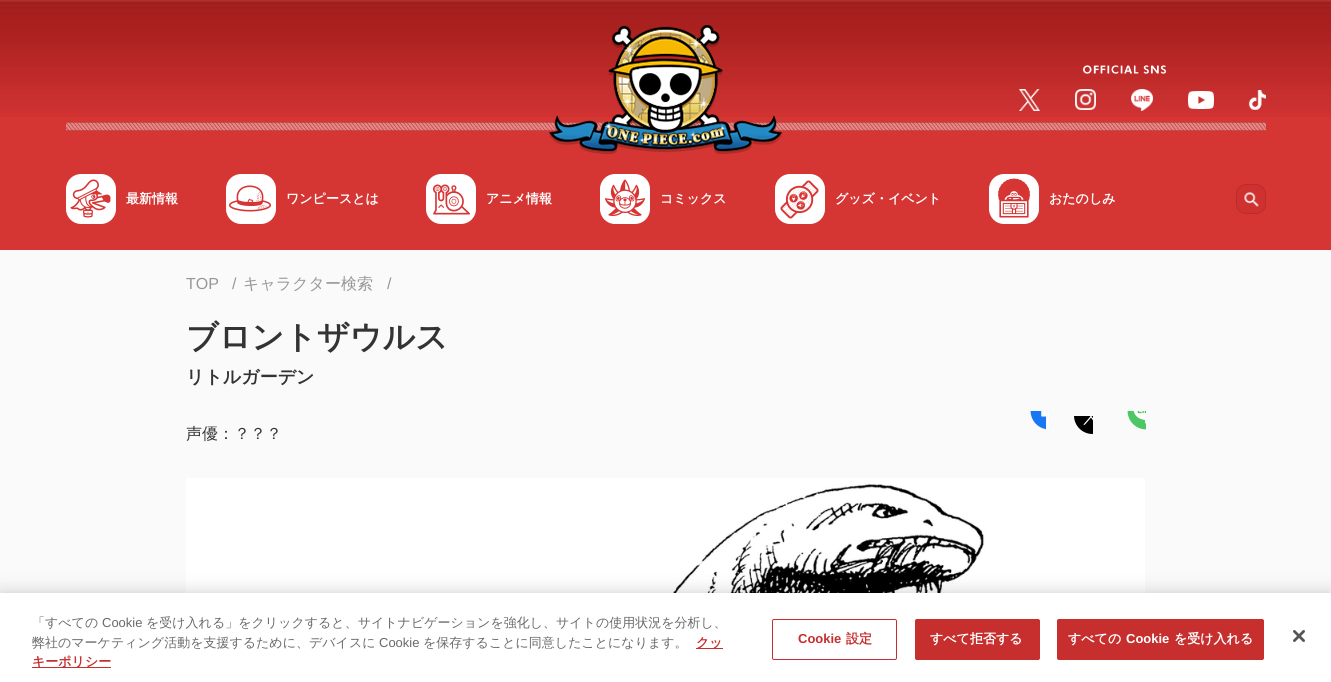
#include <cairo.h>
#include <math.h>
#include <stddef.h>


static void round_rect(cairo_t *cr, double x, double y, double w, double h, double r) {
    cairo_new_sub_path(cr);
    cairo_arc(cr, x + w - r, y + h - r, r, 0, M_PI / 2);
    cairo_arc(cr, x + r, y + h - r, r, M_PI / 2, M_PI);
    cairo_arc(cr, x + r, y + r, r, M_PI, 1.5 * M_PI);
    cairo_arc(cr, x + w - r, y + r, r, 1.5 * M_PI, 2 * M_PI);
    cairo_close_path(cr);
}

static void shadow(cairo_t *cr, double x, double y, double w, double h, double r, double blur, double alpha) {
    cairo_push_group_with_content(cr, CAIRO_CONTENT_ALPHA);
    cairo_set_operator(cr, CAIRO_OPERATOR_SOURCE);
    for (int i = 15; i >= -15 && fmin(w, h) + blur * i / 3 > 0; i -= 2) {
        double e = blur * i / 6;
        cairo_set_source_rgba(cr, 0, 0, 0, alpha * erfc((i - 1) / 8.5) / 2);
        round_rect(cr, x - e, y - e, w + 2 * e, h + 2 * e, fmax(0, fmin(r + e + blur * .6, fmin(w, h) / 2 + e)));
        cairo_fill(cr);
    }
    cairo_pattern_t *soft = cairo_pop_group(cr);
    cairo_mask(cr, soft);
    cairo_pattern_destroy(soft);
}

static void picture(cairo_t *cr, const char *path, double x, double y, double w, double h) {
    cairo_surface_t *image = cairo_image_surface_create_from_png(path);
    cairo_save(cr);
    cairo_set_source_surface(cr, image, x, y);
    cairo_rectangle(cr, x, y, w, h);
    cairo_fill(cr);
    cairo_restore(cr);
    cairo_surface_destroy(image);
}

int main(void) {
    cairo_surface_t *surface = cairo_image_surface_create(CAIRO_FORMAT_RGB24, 1331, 682);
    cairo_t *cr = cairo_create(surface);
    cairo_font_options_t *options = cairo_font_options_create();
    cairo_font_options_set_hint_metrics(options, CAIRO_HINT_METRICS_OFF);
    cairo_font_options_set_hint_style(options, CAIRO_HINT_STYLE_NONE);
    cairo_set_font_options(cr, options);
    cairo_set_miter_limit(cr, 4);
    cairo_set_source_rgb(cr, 0.98, 0.98, 0.98);
    cairo_paint(cr);
    cairo_set_source_rgb(cr, 0.835, 0.212, 0.2);
    cairo_rectangle(cr, 0, 117, 1331, 133);
    cairo_fill(cr);
    picture(cr, "img1.png", 0, 0, 1331, 117);
    picture(cr, "img3.png", 66, 122, 1200, 9);
    picture(cr, "img2.png", 549, 25, 234, 129);
    picture(cr, "img4.png", 1082, 65, 84, 9);
    picture(cr, "img5.png", 1019, 89, 21, 22);
    picture(cr, "img6.png", 1075, 89, 21, 21);
    picture(cr, "img7.png", 1131, 89, 22, 22);
    picture(cr, "img8.png", 1188, 91, 26, 18);
    picture(cr, "img9.png", 1248, 90, 18, 20);
    cairo_set_source_rgb(cr, 1, 1, 1);
    round_rect(cr, 66, 174, 50, 50, 15);
    cairo_fill(cr);
    picture(cr, "img10.png", 70, 179, 41, 39);
    cairo_select_font_face(cr, "WenQuanYi Zen Hei", CAIRO_FONT_SLANT_NORMAL, CAIRO_FONT_WEIGHT_BOLD);
    cairo_set_font_size(cr, 13);
    cairo_move_to(cr, 126, 203);
    cairo_show_text(cr, "最新情報");
    round_rect(cr, 226, 174, 50, 50, 15);
    cairo_fill(cr);
    picture(cr, "img11.png", 229, 185, 42, 27);
    cairo_move_to(cr, 286, 203);
    cairo_show_text(cr, "ワンピースとは");
    round_rect(cr, 426, 174, 50, 50, 15);
    cairo_fill(cr);
    picture(cr, "img12.png", 433, 184, 37, 31);
    cairo_move_to(cr, 486, 203);
    cairo_show_text(cr, "アニメ情報");
    round_rect(cr, 600, 174, 50, 50, 15);
    cairo_fill(cr);
    picture(cr, "img13.png", 605, 179, 40, 37);
    cairo_move_to(cr, 660, 203);
    cairo_show_text(cr, "コミックス");
    round_rect(cr, 775, 174, 50, 50, 15);
    cairo_fill(cr);
    picture(cr, "img14.png", 780, 180, 39, 39);
    cairo_move_to(cr, 835, 203);
    cairo_show_text(cr, "グッズ・イベント");
    round_rect(cr, 989, 174, 50, 50, 15);
    cairo_fill(cr);
    picture(cr, "img15.png", 998, 178, 32, 40);
    cairo_move_to(cr, 1049, 203);
    cairo_show_text(cr, "おたのしみ");
    cairo_set_source_rgb(cr, 0.808, 0.192, 0.188);
    round_rect(cr, 1236, 184, 30, 30, 10);
    cairo_fill(cr);
    round_rect(cr, 1236.5, 184.5, 29, 29, 9.5);
    cairo_set_source_rgba(cr, 0, 0, 0, 0.1);
    cairo_set_line_width(cr, 1);
    cairo_stroke(cr);
    picture(cr, "img16.png", 1244, 192, 15, 15);
    cairo_select_font_face(cr, "Liberation Sans", CAIRO_FONT_SLANT_NORMAL, CAIRO_FONT_WEIGHT_NORMAL);
    cairo_set_font_size(cr, 16);
    cairo_set_source_rgb(cr, 0.592, 0.592, 0.592);
    cairo_move_to(cr, 186, 289);
    cairo_show_text(cr, "TOP");
    cairo_move_to(cr, 232, 289);
    cairo_show_text(cr, "/");
    cairo_select_font_face(cr, "WenQuanYi Zen Hei Medium", CAIRO_FONT_SLANT_NORMAL, CAIRO_FONT_WEIGHT_NORMAL);
    cairo_move_to(cr, 243, 289);
    cairo_show_text(cr, "キャラクター検索");
    cairo_select_font_face(cr, "Liberation Sans", CAIRO_FONT_SLANT_NORMAL, CAIRO_FONT_WEIGHT_NORMAL);
    cairo_move_to(cr, 387, 289);
    cairo_show_text(cr, "/");
    cairo_select_font_face(cr, "WenQuanYi Zen Hei", CAIRO_FONT_SLANT_NORMAL, CAIRO_FONT_WEIGHT_BOLD);
    cairo_set_font_size(cr, 32);
    cairo_set_source_rgb(cr, 0.2, 0.2, 0.2);
    cairo_move_to(cr, 186, 348);
    cairo_show_text(cr, "ブロントザウルス");
    cairo_set_font_size(cr, 18);
    cairo_move_to(cr, 186, 383);
    cairo_show_text(cr, "リトルガーデン");
    cairo_select_font_face(cr, "WenQuanYi Zen Hei Medium", CAIRO_FONT_SLANT_NORMAL, CAIRO_FONT_WEIGHT_NORMAL);
    cairo_set_font_size(cr, 16);
    cairo_move_to(cr, 186, 439);
    cairo_show_text(cr, "声優：？？？");
    picture(cr, "img17.png", 1030, 411, 19, 19);
    picture(cr, "img18.png", 1074, 416, 19, 18);
    picture(cr, "img19.png", 1127, 411, 19, 19);
    picture(cr, "img20.png", 186, 478, 959, 115);
    cairo_set_source_rgb(cr, 0, 0, 0);
    shadow(cr, 0, 593, 1331, 89, 0, 9, 0.2);
    cairo_set_source_rgb(cr, 1, 1, 1);
    cairo_rectangle(cr, 0, 593, 1331, 89);
    cairo_fill(cr);
    cairo_set_font_size(cr, 13);
    cairo_set_source_rgb(cr, 0.412, 0.412, 0.412);
    cairo_move_to(cr, 32, 627);
    cairo_show_text(cr, "「すべての");
    cairo_select_font_face(cr, "Liberation Sans", CAIRO_FONT_SLANT_NORMAL, CAIRO_FONT_WEIGHT_NORMAL);
    cairo_move_to(cr, 102, 627);
    cairo_show_text(cr, "Cookie");
    cairo_select_font_face(cr, "WenQuanYi Zen Hei Medium", CAIRO_FONT_SLANT_NORMAL, CAIRO_FONT_WEIGHT_NORMAL);
    cairo_move_to(cr, 146, 627);
    cairo_show_text(cr, "を受け入れる」をクリックすると、サイトナビゲーションを強化し、サイトの使用状況を分析し、");
    cairo_move_to(cr, 32, 647);
    cairo_show_text(cr, "弊社のマーケティング活動を支援するために、デバイスに");
    cairo_select_font_face(cr, "Liberation Sans", CAIRO_FONT_SLANT_NORMAL, CAIRO_FONT_WEIGHT_NORMAL);
    cairo_move_to(cr, 379, 647);
    cairo_show_text(cr, "Cookie");
    cairo_select_font_face(cr, "WenQuanYi Zen Hei Medium", CAIRO_FONT_SLANT_NORMAL, CAIRO_FONT_WEIGHT_NORMAL);
    cairo_move_to(cr, 423, 647);
    cairo_show_text(cr, "を保存することに同意したことになります。");
    cairo_set_source_rgb(cr, 0.776, 0.184, 0.18);
    cairo_rectangle(cr, 696, 648, 27, 1);
    cairo_fill(cr);
    cairo_select_font_face(cr, "WenQuanYi Zen Hei", CAIRO_FONT_SLANT_NORMAL, CAIRO_FONT_WEIGHT_BOLD);
    cairo_move_to(cr, 696, 647);
    cairo_show_text(cr, "クッ");
    cairo_rectangle(cr, 32, 667, 79, 1);
    cairo_fill(cr);
    cairo_move_to(cr, 32, 666);
    cairo_show_text(cr, "キーポリシー");
    round_rect(cr, 772.5, 619.5, 124, 40, 1.5);
    cairo_stroke(cr);
    cairo_select_font_face(cr, "Liberation Sans", CAIRO_FONT_SLANT_NORMAL, CAIRO_FONT_WEIGHT_BOLD);
    cairo_move_to(cr, 798, 643);
    cairo_show_text(cr, "Cookie");
    cairo_select_font_face(cr, "WenQuanYi Zen Hei", CAIRO_FONT_SLANT_NORMAL, CAIRO_FONT_WEIGHT_BOLD);
    cairo_move_to(cr, 846, 643);
    cairo_show_text(cr, "設定");
    round_rect(cr, 915.5, 619.5, 124, 40, 1.5);
    cairo_fill_preserve(cr);
    cairo_stroke(cr);
    cairo_set_source_rgb(cr, 1, 1, 1);
    cairo_move_to(cr, 930, 643);
    cairo_show_text(cr, "すべて拒否する");
    cairo_set_source_rgb(cr, 0.776, 0.184, 0.18);
    round_rect(cr, 1057.5, 619.5, 206, 40, 1.5);
    cairo_fill_preserve(cr);
    cairo_stroke(cr);
    cairo_set_source_rgb(cr, 1, 1, 1);
    cairo_move_to(cr, 1068, 643);
    cairo_show_text(cr, "すべての");
    cairo_select_font_face(cr, "Liberation Sans", CAIRO_FONT_SLANT_NORMAL, CAIRO_FONT_WEIGHT_BOLD);
    cairo_move_to(cr, 1126, 643);
    cairo_show_text(cr, "Cookie");
    cairo_select_font_face(cr, "WenQuanYi Zen Hei", CAIRO_FONT_SLANT_NORMAL, CAIRO_FONT_WEIGHT_BOLD);
    cairo_move_to(cr, 1174, 643);
    cairo_show_text(cr, "を受け入れる");
    picture(cr, "img21.png", 1293, 630, 12, 12);
    cairo_surface_write_to_png(surface, "page.png");
    cairo_font_options_destroy(options);
    cairo_destroy(cr);
    cairo_surface_destroy(surface);
    return 0;
}
